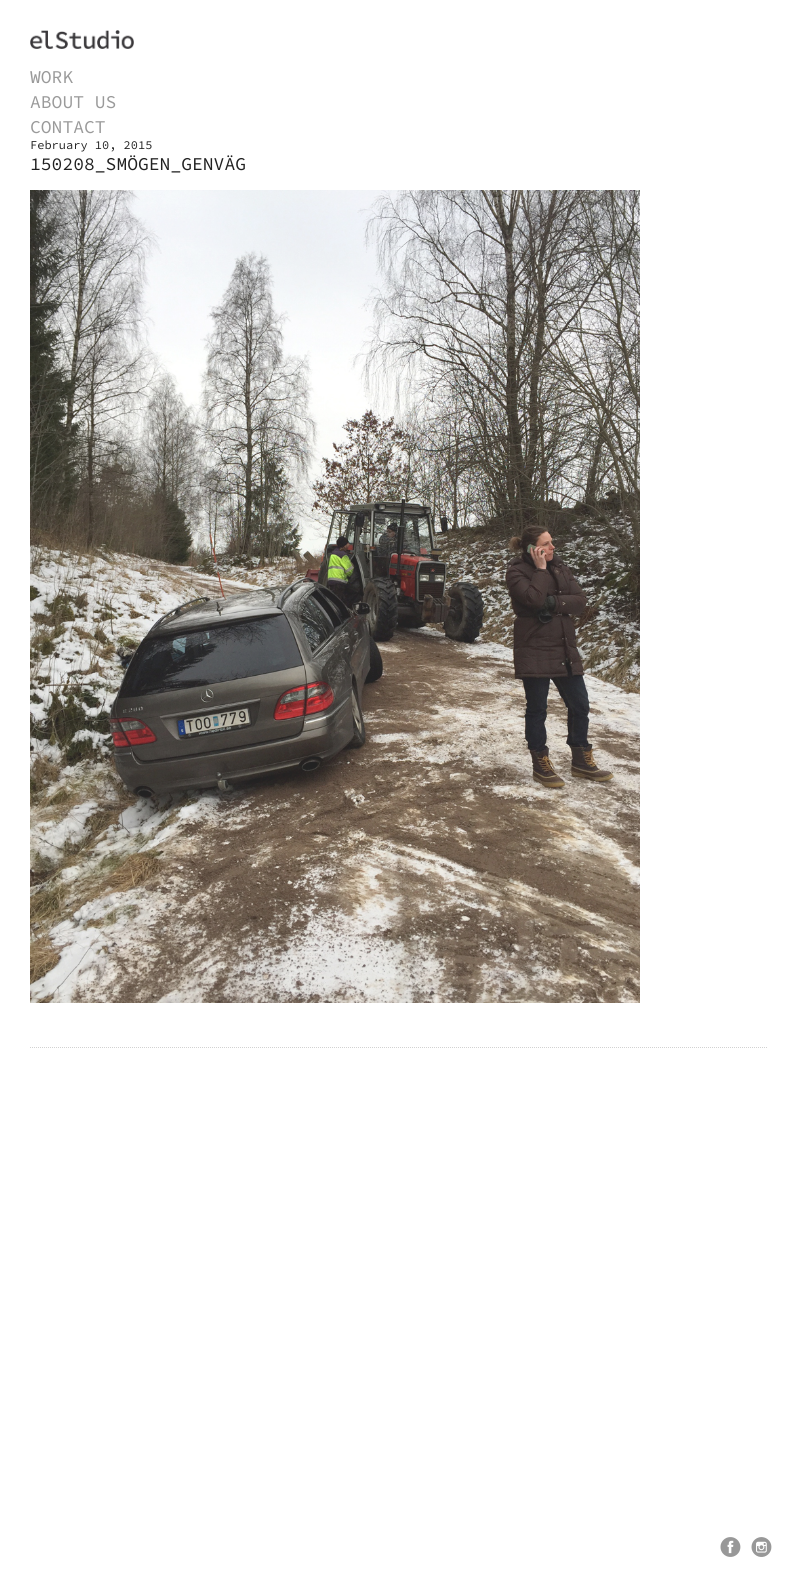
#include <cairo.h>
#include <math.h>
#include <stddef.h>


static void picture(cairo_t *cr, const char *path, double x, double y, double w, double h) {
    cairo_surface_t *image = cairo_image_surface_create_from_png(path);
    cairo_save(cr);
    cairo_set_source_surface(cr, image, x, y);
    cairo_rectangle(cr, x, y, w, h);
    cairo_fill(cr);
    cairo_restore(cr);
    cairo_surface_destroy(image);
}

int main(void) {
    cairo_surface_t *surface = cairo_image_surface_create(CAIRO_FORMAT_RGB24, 798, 1585);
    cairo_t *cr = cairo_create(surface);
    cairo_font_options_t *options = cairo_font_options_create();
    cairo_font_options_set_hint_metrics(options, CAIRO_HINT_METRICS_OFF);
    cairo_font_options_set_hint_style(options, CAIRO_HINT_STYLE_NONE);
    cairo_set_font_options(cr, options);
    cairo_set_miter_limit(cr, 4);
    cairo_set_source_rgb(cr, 1, 1, 1);
    cairo_paint(cr);
    picture(cr, "img1.png", 30, 30, 104, 19);
    cairo_select_font_face(cr, "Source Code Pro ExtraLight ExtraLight", CAIRO_FONT_SLANT_NORMAL, CAIRO_FONT_WEIGHT_NORMAL);
    cairo_set_font_size(cr, 18);
    cairo_set_source_rgb(cr, 0.604, 0.604, 0.604);
    cairo_move_to(cr, 30, 83);
    cairo_show_text(cr, "WORK");
    cairo_move_to(cr, 30, 108);
    cairo_show_text(cr, "ABOUT US");
    cairo_move_to(cr, 30, 133);
    cairo_show_text(cr, "CONTACT");
    cairo_set_font_size(cr, 12);
    cairo_set_source_rgb(cr, 0.129, 0.129, 0.129);
    cairo_move_to(cr, 30, 149);
    cairo_show_text(cr, "February 10, 2015");
    cairo_set_font_size(cr, 18);
    cairo_move_to(cr, 30, 170);
    cairo_show_text(cr, "150208_SMÖGEN_GENVÄG");
    picture(cr, "img2.png", 30, 190, 610, 813);
    cairo_new_path(cr);
    cairo_move_to(cr, 30, 1047.5);
    cairo_line_to(cr, 768, 1047.5);
    cairo_set_source_rgb(cr, 0.824, 0.824, 0.824);
    cairo_set_line_width(cr, 1);
    cairo_set_dash(cr, (double[]){1, 1}, 2, 0);
    cairo_stroke(cr);
    picture(cr, "img3.png", 720, 1537, 21, 20);
    picture(cr, "img4.png", 751, 1537, 21, 20);
    cairo_surface_write_to_png(surface, "page.png");
    cairo_font_options_destroy(options);
    cairo_destroy(cr);
    cairo_surface_destroy(surface);
    return 0;
}
